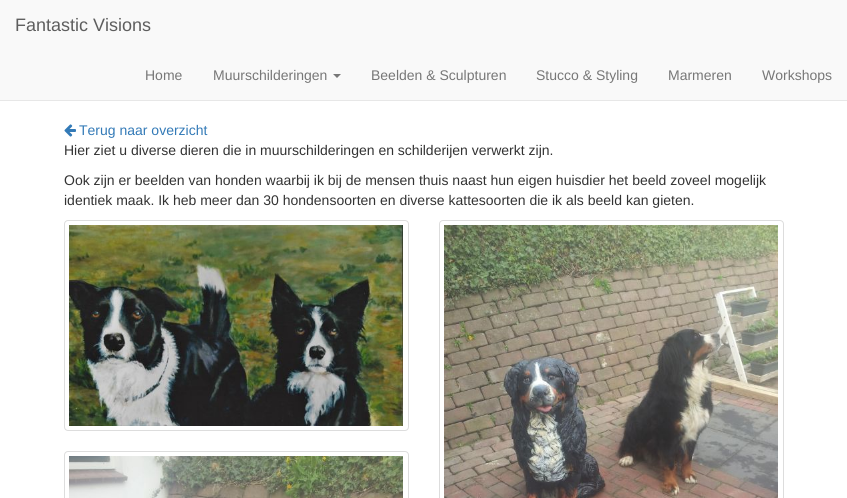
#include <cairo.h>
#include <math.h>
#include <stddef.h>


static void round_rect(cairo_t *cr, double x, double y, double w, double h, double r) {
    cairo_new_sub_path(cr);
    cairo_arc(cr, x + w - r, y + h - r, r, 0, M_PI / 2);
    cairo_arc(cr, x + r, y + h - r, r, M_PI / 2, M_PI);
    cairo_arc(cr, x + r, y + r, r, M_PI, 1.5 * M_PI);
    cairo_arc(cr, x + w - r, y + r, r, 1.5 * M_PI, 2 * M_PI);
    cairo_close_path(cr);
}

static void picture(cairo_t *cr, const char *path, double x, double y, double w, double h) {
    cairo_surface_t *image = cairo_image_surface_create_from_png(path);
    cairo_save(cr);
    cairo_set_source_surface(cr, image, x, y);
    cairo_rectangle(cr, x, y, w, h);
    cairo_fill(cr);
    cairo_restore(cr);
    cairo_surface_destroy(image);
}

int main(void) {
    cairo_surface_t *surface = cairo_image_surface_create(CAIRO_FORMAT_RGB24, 847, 498);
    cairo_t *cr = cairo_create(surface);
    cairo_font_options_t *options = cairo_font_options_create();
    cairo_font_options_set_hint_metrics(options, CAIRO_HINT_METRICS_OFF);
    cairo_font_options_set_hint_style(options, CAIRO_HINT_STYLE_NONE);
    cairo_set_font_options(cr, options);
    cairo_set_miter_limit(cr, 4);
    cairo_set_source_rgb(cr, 1, 1, 1);
    cairo_paint(cr);
    cairo_set_source_rgb(cr, 0.973, 0.973, 0.973);
    cairo_rectangle(cr, 0, 0, 847, 100);
    cairo_fill(cr);
    cairo_set_source_rgb(cr, 0.906, 0.906, 0.906);
    cairo_rectangle(cr, 0, 100, 847, 1);
    cairo_fill(cr);
    cairo_select_font_face(cr, "Liberation Sans", CAIRO_FONT_SLANT_NORMAL, CAIRO_FONT_WEIGHT_NORMAL);
    cairo_set_font_size(cr, 18);
    cairo_set_source_rgb(cr, 0.369, 0.369, 0.369);
    cairo_move_to(cr, 15, 31);
    cairo_show_text(cr, "Fantastic Visions");
    cairo_set_font_size(cr, 14);
    cairo_set_source_rgb(cr, 0.467, 0.467, 0.467);
    cairo_move_to(cr, 145, 80);
    cairo_show_text(cr, "Home");
    cairo_move_to(cr, 213, 80);
    cairo_show_text(cr, "Muurschilderingen");
    cairo_new_path(cr);
    cairo_move_to(cr, 333, 74);
    cairo_line_to(cr, 341, 74);
    cairo_line_to(cr, 337, 78);
    cairo_close_path(cr);
    cairo_fill(cr);
    cairo_move_to(cr, 371, 80);
    cairo_show_text(cr, "Beelden & Sculpturen");
    cairo_move_to(cr, 536, 80);
    cairo_show_text(cr, "Stucco & Styling");
    cairo_move_to(cr, 668, 80);
    cairo_show_text(cr, "Marmeren");
    cairo_move_to(cr, 762, 80);
    cairo_show_text(cr, "Workshops");
    picture(cr, "img1.png", 64, 124, 12, 13);
    cairo_set_source_rgb(cr, 0.2, 0.478, 0.718);
    cairo_move_to(cr, 79, 135);
    cairo_show_text(cr, "Terug naar overzicht");
    cairo_set_source_rgb(cr, 0.2, 0.2, 0.2);
    cairo_move_to(cr, 64, 155);
    cairo_show_text(cr, "Hier ziet u diverse dieren die in muurschilderingen en schilderijen verwerkt zijn.");
    cairo_move_to(cr, 64, 185);
    cairo_show_text(cr, "Ook zijn er beelden van honden waarbij ik bij de mensen thuis naast hun eigen huisdier het beeld zoveel mogelijk");
    cairo_move_to(cr, 64, 205);
    cairo_show_text(cr, "identiek maak. Ik heb meer dan 30 hondensoorten en diverse kattesoorten die ik als beeld kan gieten.");
    round_rect(cr, 64.5, 220.5, 344, 210, 3.5);
    cairo_set_source_rgb(cr, 0.867, 0.867, 0.867);
    cairo_set_line_width(cr, 1);
    cairo_stroke(cr);
    picture(cr, "img2.png", 69, 225, 334, 201);
    round_rect(cr, 439.5, 220.5, 344, 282, 3.5);
    cairo_stroke(cr);
    picture(cr, "img3.png", 444, 225, 334, 273);
    round_rect(cr, 64.5, 451.5, 344, 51, 3.5);
    cairo_stroke(cr);
    picture(cr, "img4.png", 69, 456, 334, 42);
    cairo_surface_write_to_png(surface, "page.png");
    cairo_font_options_destroy(options);
    cairo_destroy(cr);
    cairo_surface_destroy(surface);
    return 0;
}
